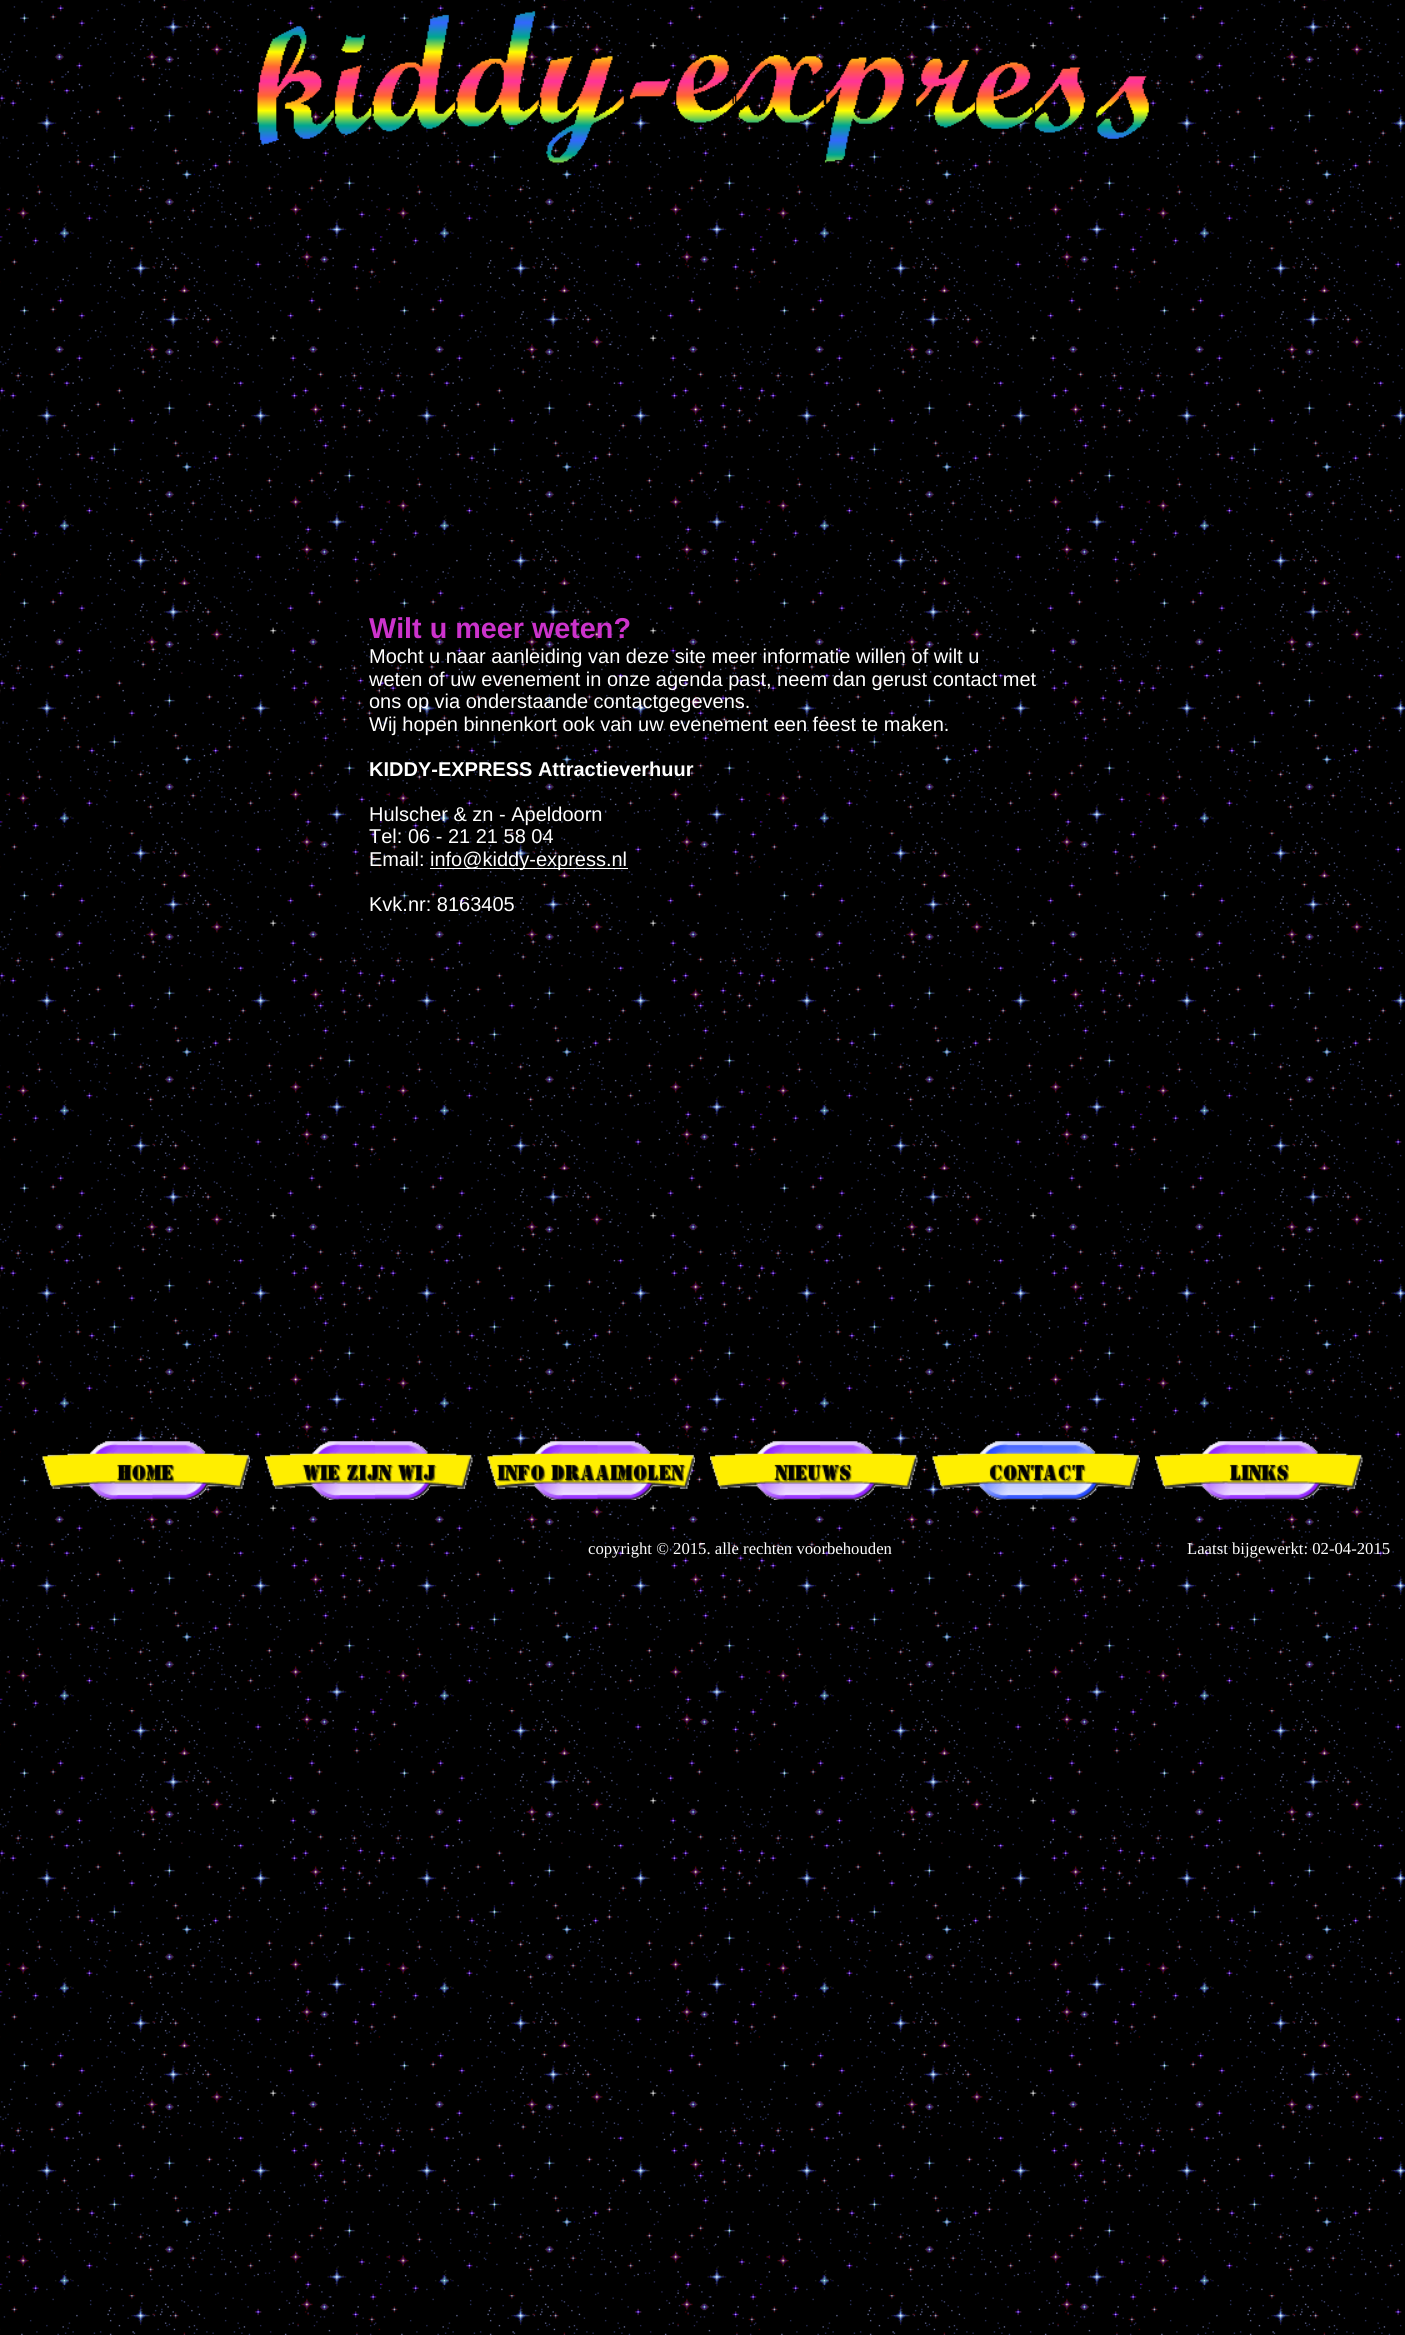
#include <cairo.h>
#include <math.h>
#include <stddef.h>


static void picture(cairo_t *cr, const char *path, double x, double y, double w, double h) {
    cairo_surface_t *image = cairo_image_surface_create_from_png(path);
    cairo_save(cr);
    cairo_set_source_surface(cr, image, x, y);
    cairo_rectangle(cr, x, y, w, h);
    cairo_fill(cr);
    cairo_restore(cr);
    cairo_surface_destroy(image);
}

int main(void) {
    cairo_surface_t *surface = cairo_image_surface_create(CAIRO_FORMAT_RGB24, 1405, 2335);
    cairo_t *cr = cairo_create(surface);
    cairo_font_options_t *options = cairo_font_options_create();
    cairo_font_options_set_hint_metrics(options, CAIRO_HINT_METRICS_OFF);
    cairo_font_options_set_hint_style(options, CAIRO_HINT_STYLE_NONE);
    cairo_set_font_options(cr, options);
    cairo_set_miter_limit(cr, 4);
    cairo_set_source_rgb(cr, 1, 1, 1);
    cairo_paint(cr);
    picture(cr, "img1.png", 0, 0, 1405, 2335);
    picture(cr, "img2.png", 256, 11, 893, 153);
    cairo_select_font_face(cr, "Liberation Sans", CAIRO_FONT_SLANT_NORMAL, CAIRO_FONT_WEIGHT_BOLD);
    cairo_set_font_size(cr, 28.75);
    cairo_set_source_rgb(cr, 0.8, 0.2, 0.8);
    cairo_move_to(cr, 369, 638);
    cairo_show_text(cr, "Wilt u meer weten?");
    cairo_select_font_face(cr, "Liberation Sans", CAIRO_FONT_SLANT_NORMAL, CAIRO_FONT_WEIGHT_NORMAL);
    cairo_set_font_size(cr, 20);
    cairo_set_source_rgb(cr, 1, 1, 1);
    cairo_move_to(cr, 369, 663);
    cairo_show_text(cr, "Mocht u naar aanleiding van deze site meer informatie willen of wilt u");
    cairo_move_to(cr, 369, 686);
    cairo_show_text(cr, "weten of uw evenement in onze agenda past, neem dan gerust contact met");
    cairo_move_to(cr, 369, 708);
    cairo_show_text(cr, "ons op via onderstaande contactgegevens.");
    cairo_move_to(cr, 369, 731);
    cairo_show_text(cr, "Wij hopen binnenkort ook van uw evenement een feest te maken.");
    cairo_select_font_face(cr, "Liberation Sans", CAIRO_FONT_SLANT_NORMAL, CAIRO_FONT_WEIGHT_BOLD);
    cairo_move_to(cr, 369, 776);
    cairo_show_text(cr, "KIDDY-EXPRESS Attractieverhuur");
    cairo_select_font_face(cr, "Liberation Sans", CAIRO_FONT_SLANT_NORMAL, CAIRO_FONT_WEIGHT_NORMAL);
    cairo_move_to(cr, 369, 821);
    cairo_show_text(cr, "Hulscher & zn - Apeldoorn");
    cairo_move_to(cr, 369, 843);
    cairo_show_text(cr, "Tel: 06 - 21 21 58 04");
    cairo_move_to(cr, 369, 866);
    cairo_show_text(cr, "Email:");
    cairo_rectangle(cr, 430, 868, 198, 1);
    cairo_fill(cr);
    cairo_move_to(cr, 430, 866);
    cairo_show_text(cr, "info@kiddy-express.nl");
    cairo_move_to(cr, 369, 911);
    cairo_show_text(cr, "Kvk.nr: 8163405");
    picture(cr, "img3.png", 42, 1441, 208, 59);
    picture(cr, "img4.png", 265, 1441, 208, 59);
    picture(cr, "img5.png", 487, 1441, 208, 59);
    picture(cr, "img6.png", 710, 1441, 208, 59);
    picture(cr, "img7.png", 932, 1441, 208, 59);
    picture(cr, "img8.png", 1155, 1441, 208, 59);
    cairo_select_font_face(cr, "Liberation Serif", CAIRO_FONT_SLANT_NORMAL, CAIRO_FONT_WEIGHT_NORMAL);
    cairo_set_font_size(cr, 16.7);
    cairo_move_to(cr, 588, 1554);
    cairo_show_text(cr, "copyright © 2015. alle rechten voorbehouden");
    cairo_move_to(cr, 1187, 1554);
    cairo_show_text(cr, "Laatst bijgewerkt: 02-04-2015");
    cairo_surface_write_to_png(surface, "page.png");
    cairo_font_options_destroy(options);
    cairo_destroy(cr);
    cairo_surface_destroy(surface);
    return 0;
}
